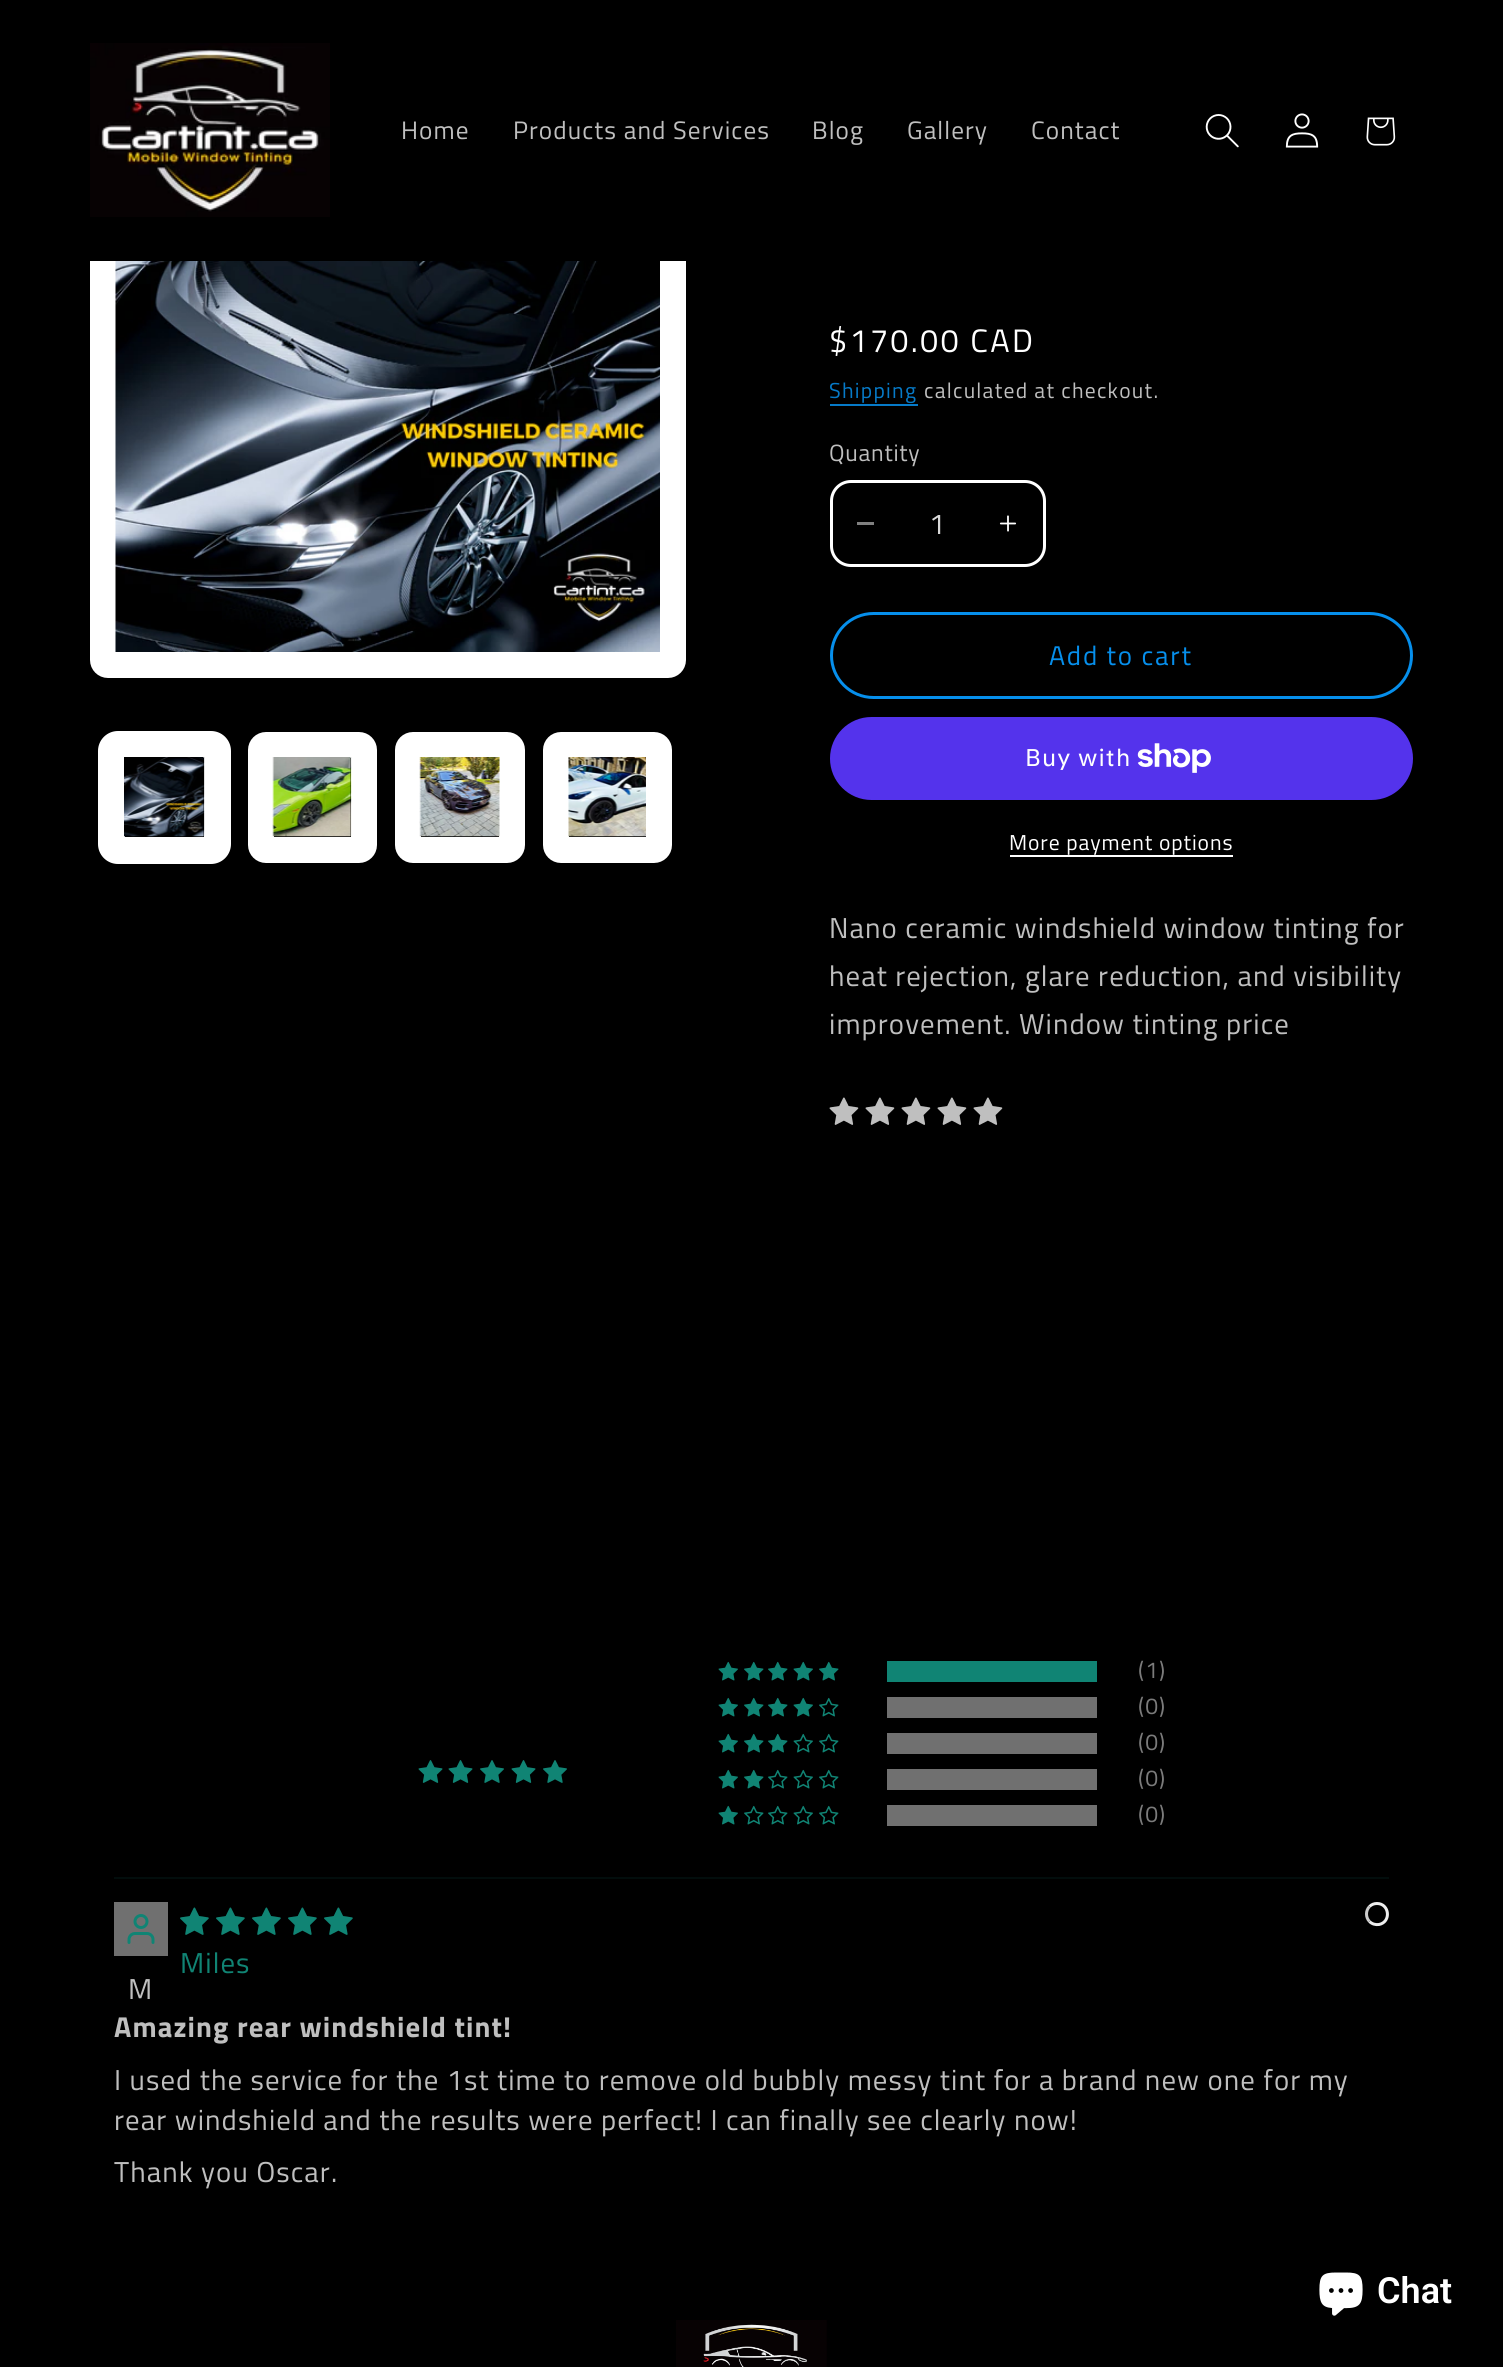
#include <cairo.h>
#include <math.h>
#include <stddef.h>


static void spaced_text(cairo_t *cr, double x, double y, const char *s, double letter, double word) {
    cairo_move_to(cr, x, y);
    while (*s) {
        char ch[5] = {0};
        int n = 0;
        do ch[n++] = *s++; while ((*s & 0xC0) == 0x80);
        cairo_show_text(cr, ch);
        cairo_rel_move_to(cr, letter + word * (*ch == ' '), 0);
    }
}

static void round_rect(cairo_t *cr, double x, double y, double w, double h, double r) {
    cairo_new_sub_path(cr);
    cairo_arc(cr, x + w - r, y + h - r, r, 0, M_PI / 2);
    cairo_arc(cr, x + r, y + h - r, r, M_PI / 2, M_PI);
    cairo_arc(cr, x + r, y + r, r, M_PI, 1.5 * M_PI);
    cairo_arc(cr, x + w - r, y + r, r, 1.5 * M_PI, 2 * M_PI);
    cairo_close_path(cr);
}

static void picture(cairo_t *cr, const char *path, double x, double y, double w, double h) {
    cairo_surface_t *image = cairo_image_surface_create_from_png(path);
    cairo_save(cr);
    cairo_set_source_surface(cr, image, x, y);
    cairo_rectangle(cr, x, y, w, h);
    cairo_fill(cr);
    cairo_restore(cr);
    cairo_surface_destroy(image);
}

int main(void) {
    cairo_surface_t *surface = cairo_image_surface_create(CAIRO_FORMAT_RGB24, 1503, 2367);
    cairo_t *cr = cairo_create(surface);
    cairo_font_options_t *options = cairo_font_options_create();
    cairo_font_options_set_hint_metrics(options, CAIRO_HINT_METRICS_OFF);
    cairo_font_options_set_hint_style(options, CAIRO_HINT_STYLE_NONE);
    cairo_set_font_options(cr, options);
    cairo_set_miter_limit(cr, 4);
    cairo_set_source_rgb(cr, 0, 0, 0);
    cairo_paint(cr);
    round_rect(cr, 103, 96, 570, 569, 5);
    cairo_set_source_rgb(cr, 1, 1, 1);
    cairo_set_line_width(cr, 26);
    cairo_stroke(cr);
    cairo_set_source_rgb(cr, 0, 0, 0);
    cairo_rectangle(cr, 90, 83, 596, 178);
    cairo_fill(cr);
    picture(cr, "img1.png", 90, 43, 240, 174);
    cairo_select_font_face(cr, "Titillium Web", CAIRO_FONT_SLANT_NORMAL, CAIRO_FONT_WEIGHT_NORMAL);
    cairo_set_font_size(cr, 25.25);
    cairo_set_source_rgb(cr, 0.749, 0.749, 0.749);
    spaced_text(cr, 401, 139, "Home", 1.08, 0);
    spaced_text(cr, 513, 139, "Products and Services", 1.08, 0);
    spaced_text(cr, 812, 139, "Blog", 1.08, 0);
    spaced_text(cr, 907, 139, "Gallery", 1.08, 0);
    spaced_text(cr, 1031, 139, "Contact", 1.08, 0);
    picture(cr, "img2.png", 1205, 114, 34, 34);
    picture(cr, "img3.png", 1285, 113, 34, 35);
    picture(cr, "img4.png", 1366, 117, 30, 29);
    picture(cr, "img5.png", 115, 261, 545, 391);
    round_rect(cr, 99, 732, 131, 131, 19);
    cairo_set_source_rgb(cr, 1, 1, 1);
    cairo_set_line_width(cr, 2);
    cairo_stroke(cr);
    round_rect(cr, 112, 745, 105, 105, 5);
    cairo_set_line_width(cr, 26);
    cairo_stroke(cr);
    picture(cr, "img6.png", 124, 757, 81, 80);
    round_rect(cr, 261, 745, 103, 105, 5);
    cairo_stroke(cr);
    picture(cr, "img7.png", 272, 757, 80, 80);
    round_rect(cr, 408, 745, 104, 105, 5);
    cairo_stroke(cr);
    picture(cr, "img8.png", 419, 757, 81, 80);
    round_rect(cr, 556, 745, 103, 105, 5);
    cairo_stroke(cr);
    picture(cr, "img9.png", 568, 757, 78, 80);
    cairo_set_font_size(cr, 32.5);
    spaced_text(cr, 829, 352, "$170.00 CAD", 2.25, 0);
    cairo_set_font_size(cr, 21.6);
    cairo_set_source_rgb(cr, 0.024, 0.478, 0.784);
    spaced_text(cr, 829, 398, "Shipping", 1.25, 0);
    cairo_rectangle(cr, 830, 404, 88, 2);
    cairo_fill(cr);
    cairo_set_source_rgb(cr, 0.749, 0.749, 0.749);
    spaced_text(cr, 924, 398, "calculated at checkout.", 1.25, 0);
    cairo_set_font_size(cr, 23.5);
    spaced_text(cr, 829, 461, "Quantity", 0.75, 0);
    cairo_set_source_rgb(cr, 0.502, 0.502, 0.502);
    cairo_rectangle(cr, 857, 522, 17, 3);
    cairo_fill(cr);
    picture(cr, "img10.png", 999, 515, 18, 17);
    round_rect(cr, 831.5, 481.5, 213, 84, 19.5);
    cairo_set_source_rgb(cr, 1, 1, 1);
    cairo_set_line_width(cr, 3);
    cairo_stroke(cr);
    cairo_set_font_size(cr, 28.8);
    cairo_set_source_rgb(cr, 0.851, 0.851, 0.851);
    cairo_move_to(cr, 929, 534);
    cairo_show_text(cr, "1");
    round_rect(cr, 831.5, 613.5, 580, 84, 42);
    cairo_set_source_rgb(cr, 0.027, 0.561, 0.922);
    cairo_stroke(cr);
    cairo_set_font_size(cr, 27);
    spaced_text(cr, 1049, 665, "Add to cart", 1.75, 0);
    cairo_set_source_rgb(cr, 0.329, 0.2, 0.922);
    round_rect(cr, 830, 717, 583, 83, 41.5);
    cairo_fill(cr);
    cairo_select_font_face(cr, "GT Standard", CAIRO_FONT_SLANT_NORMAL, CAIRO_FONT_WEIGHT_NORMAL);
    cairo_set_font_size(cr, 24);
    cairo_set_source_rgb(cr, 1, 1, 1);
    spaced_text(cr, 1025, 766, "Buy with", 1.08, 0);
    picture(cr, "img11.png", 1137, 743, 74, 30);
    cairo_select_font_face(cr, "Titillium Web", CAIRO_FONT_SLANT_NORMAL, CAIRO_FONT_WEIGHT_NORMAL);
    cairo_set_font_size(cr, 21.6);
    spaced_text(cr, 1009, 850, "More payment options", 0.9, 0);
    cairo_rectangle(cr, 1010, 855, 223, 2);
    cairo_fill(cr);
    cairo_set_font_size(cr, 28.8);
    cairo_set_source_rgb(cr, 0.749, 0.749, 0.749);
    spaced_text(cr, 829, 938, "Nano ceramic windshield window tinting for", 1.08, 0);
    spaced_text(cr, 829, 986, "heat rejection, glare reduction, and visibility", 1.08, 0);
    spaced_text(cr, 829, 1034, "improvement. Window tinting price", 1.08, 0);
    picture(cr, "img12.png", 829, 1097, 30, 28);
    picture(cr, "img12.png", 865, 1097, 30, 28);
    picture(cr, "img12.png", 901, 1097, 30, 28);
    picture(cr, "img12.png", 937, 1097, 30, 28);
    picture(cr, "img12.png", 973, 1097, 30, 28);
    picture(cr, "img13.png", 418, 1760, 25, 23);
    picture(cr, "img13.png", 448, 1760, 25, 23);
    picture(cr, "img14.png", 480, 1760, 24, 23);
    picture(cr, "img13.png", 511, 1760, 25, 23);
    picture(cr, "img14.png", 543, 1760, 24, 23);
    picture(cr, "img15.png", 718, 1661, 20, 20);
    picture(cr, "img16.png", 744, 1661, 20, 20);
    picture(cr, "img16.png", 768, 1661, 20, 20);
    picture(cr, "img15.png", 793, 1661, 20, 20);
    picture(cr, "img16.png", 819, 1661, 20, 20);
    cairo_set_source_rgb(cr, 0.063, 0.518, 0.455);
    cairo_rectangle(cr, 887, 1661, 210, 21);
    cairo_fill(cr);
    cairo_set_font_size(cr, 23);
    cairo_set_source_rgb(cr, 0.482, 0.482, 0.482);
    spaced_text(cr, 1138, 1678, "(1)", 1.08, 0);
    picture(cr, "img15.png", 718, 1697, 20, 20);
    picture(cr, "img16.png", 744, 1697, 20, 20);
    picture(cr, "img16.png", 768, 1697, 20, 20);
    picture(cr, "img15.png", 793, 1697, 20, 20);
    picture(cr, "img17.png", 819, 1697, 20, 20);
    cairo_set_source_rgb(cr, 0.439, 0.439, 0.439);
    cairo_rectangle(cr, 887, 1697, 210, 21);
    cairo_fill(cr);
    cairo_set_source_rgb(cr, 0.482, 0.482, 0.482);
    spaced_text(cr, 1138, 1714, "(0)", 1.08, 0);
    picture(cr, "img15.png", 718, 1733, 20, 20);
    picture(cr, "img16.png", 744, 1733, 20, 20);
    picture(cr, "img16.png", 768, 1733, 20, 20);
    picture(cr, "img18.png", 793, 1733, 20, 20);
    picture(cr, "img17.png", 819, 1733, 20, 20);
    cairo_set_source_rgb(cr, 0.439, 0.439, 0.439);
    cairo_rectangle(cr, 887, 1733, 210, 21);
    cairo_fill(cr);
    cairo_set_source_rgb(cr, 0.482, 0.482, 0.482);
    spaced_text(cr, 1138, 1750, "(0)", 1.08, 0);
    picture(cr, "img15.png", 718, 1769, 20, 20);
    picture(cr, "img16.png", 744, 1769, 20, 20);
    picture(cr, "img17.png", 768, 1769, 20, 20);
    picture(cr, "img18.png", 793, 1769, 20, 20);
    picture(cr, "img17.png", 819, 1769, 20, 20);
    cairo_set_source_rgb(cr, 0.439, 0.439, 0.439);
    cairo_rectangle(cr, 887, 1769, 210, 21);
    cairo_fill(cr);
    cairo_set_source_rgb(cr, 0.482, 0.482, 0.482);
    spaced_text(cr, 1138, 1786, "(0)", 1.08, 0);
    picture(cr, "img15.png", 718, 1805, 20, 20);
    picture(cr, "img17.png", 744, 1805, 20, 20);
    picture(cr, "img17.png", 768, 1805, 20, 20);
    picture(cr, "img18.png", 793, 1805, 20, 20);
    picture(cr, "img17.png", 819, 1805, 20, 20);
    cairo_set_source_rgb(cr, 0.439, 0.439, 0.439);
    cairo_rectangle(cr, 887, 1805, 210, 21);
    cairo_fill(cr);
    cairo_set_source_rgb(cr, 0.482, 0.482, 0.482);
    spaced_text(cr, 1138, 1822, "(0)", 1.08, 0);
    cairo_set_source_rgb(cr, 0.008, 0.051, 0.047);
    cairo_rectangle(cr, 114, 1877, 1275, 2);
    cairo_fill(cr);
    picture(cr, "img19.png", 180, 1907, 29, 28);
    picture(cr, "img19.png", 216, 1907, 29, 28);
    picture(cr, "img19.png", 252, 1907, 29, 28);
    picture(cr, "img19.png", 288, 1907, 29, 28);
    picture(cr, "img19.png", 324, 1907, 29, 28);
    cairo_new_path(cr);
    cairo_move_to(cr, 1369.5, 1906.5);
    cairo_curve_to(cr, 1371.5, 1904.5, 1374, 1903.5, 1377, 1903.5);
    cairo_curve_to(cr, 1389.5, 1903.5, 1391.5, 1922, 1379, 1924.5);
    cairo_curve_to(cr, 1375.5, 1925, 1372, 1924, 1369.5, 1921.5);
    cairo_set_source_rgb(cr, 0.933, 0.933, 0.933);
    cairo_stroke(cr);
    cairo_new_path(cr);
    cairo_move_to(cr, 1369.5, 1921.5);
    cairo_curve_to(cr, 1365.5, 1917.5, 1365.5, 1910.5, 1369.5, 1906.5);
    cairo_set_source_rgb(cr, 0.8, 0.8, 0.8);
    cairo_stroke(cr);
    cairo_set_font_size(cr, 28.8);
    cairo_set_source_rgb(cr, 0.063, 0.518, 0.455);
    spaced_text(cr, 180, 1973, "Miles", 1.08, 0);
    cairo_set_source_rgb(cr, 0.439, 0.439, 0.439);
    cairo_rectangle(cr, 114, 1902, 54, 54);
    cairo_fill(cr);
    picture(cr, "img20.png", 127, 1914, 28, 30);
    cairo_set_source_rgb(cr, 0.749, 0.749, 0.749);
    spaced_text(cr, 128, 1999, "M", 1.08, 0);
    cairo_select_font_face(cr, "Titillium Web", CAIRO_FONT_SLANT_NORMAL, CAIRO_FONT_WEIGHT_BOLD);
    spaced_text(cr, 114, 2037, "Amazing rear windshield tint!", 1.08, 0);
    cairo_select_font_face(cr, "Titillium Web", CAIRO_FONT_SLANT_NORMAL, CAIRO_FONT_WEIGHT_NORMAL);
    spaced_text(cr, 114, 2090, "I used the service for the 1st time to remove old bubbly messy tint for a brand new one for my", 1.08, 0);
    spaced_text(cr, 114, 2130, "rear windshield and the results were perfect! I can finally see clearly now!", 1.08, 0);
    spaced_text(cr, 114, 2182, "Thank you Oscar.", 1.08, 0);
    picture(cr, "img21.png", 1319, 2272, 44, 44);
    cairo_select_font_face(cr, "Roboto SemiBold", CAIRO_FONT_SLANT_NORMAL, CAIRO_FONT_WEIGHT_NORMAL);
    cairo_set_font_size(cr, 36);
    cairo_set_source_rgb(cr, 1, 1, 1);
    cairo_move_to(cr, 1377, 2303);
    cairo_show_text(cr, "Chat");
    picture(cr, "img22.png", 676, 2320, 151, 47);
    cairo_surface_write_to_png(surface, "page.png");
    cairo_font_options_destroy(options);
    cairo_destroy(cr);
    cairo_surface_destroy(surface);
    return 0;
}
